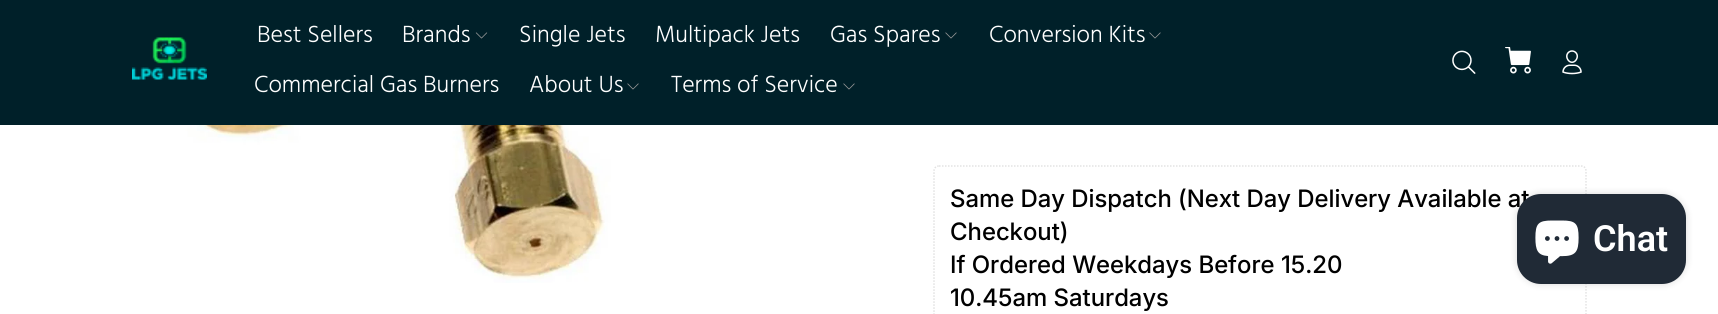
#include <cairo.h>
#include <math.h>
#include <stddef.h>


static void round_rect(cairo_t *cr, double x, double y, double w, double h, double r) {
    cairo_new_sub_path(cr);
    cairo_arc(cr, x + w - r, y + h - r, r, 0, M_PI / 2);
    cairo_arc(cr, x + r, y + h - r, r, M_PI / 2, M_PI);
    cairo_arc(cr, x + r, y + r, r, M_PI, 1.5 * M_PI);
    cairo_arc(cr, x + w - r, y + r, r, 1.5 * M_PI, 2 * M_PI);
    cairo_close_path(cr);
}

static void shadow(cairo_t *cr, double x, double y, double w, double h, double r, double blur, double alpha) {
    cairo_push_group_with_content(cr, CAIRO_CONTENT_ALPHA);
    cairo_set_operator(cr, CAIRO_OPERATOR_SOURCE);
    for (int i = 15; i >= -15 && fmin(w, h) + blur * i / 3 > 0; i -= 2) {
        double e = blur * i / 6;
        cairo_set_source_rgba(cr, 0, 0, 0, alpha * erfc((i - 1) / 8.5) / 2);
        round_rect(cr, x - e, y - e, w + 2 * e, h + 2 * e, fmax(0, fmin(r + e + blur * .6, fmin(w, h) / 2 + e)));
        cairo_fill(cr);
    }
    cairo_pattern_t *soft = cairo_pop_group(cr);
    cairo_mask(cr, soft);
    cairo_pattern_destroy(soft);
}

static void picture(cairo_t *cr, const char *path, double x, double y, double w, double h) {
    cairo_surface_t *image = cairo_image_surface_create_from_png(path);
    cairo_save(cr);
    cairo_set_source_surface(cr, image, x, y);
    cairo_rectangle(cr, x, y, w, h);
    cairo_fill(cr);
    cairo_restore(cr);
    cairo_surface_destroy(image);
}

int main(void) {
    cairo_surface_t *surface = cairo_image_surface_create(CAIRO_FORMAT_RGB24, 1718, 314);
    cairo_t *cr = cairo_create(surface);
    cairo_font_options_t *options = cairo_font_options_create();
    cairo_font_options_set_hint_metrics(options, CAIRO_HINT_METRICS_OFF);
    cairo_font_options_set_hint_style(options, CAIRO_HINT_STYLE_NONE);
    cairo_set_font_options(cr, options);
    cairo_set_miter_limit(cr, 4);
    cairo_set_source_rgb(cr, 1, 1, 1);
    cairo_paint(cr);
    cairo_set_source_rgb(cr, 0, 0.125, 0.161);
    cairo_rectangle(cr, 0, 0, 1718, 125);
    cairo_fill(cr);
    picture(cr, "img1.png", 132, 37, 75, 43);
    cairo_select_font_face(cr, "Hind Light", CAIRO_FONT_SLANT_NORMAL, CAIRO_FONT_WEIGHT_NORMAL);
    cairo_set_font_size(cr, 24);
    cairo_set_source_rgb(cr, 1, 1, 1);
    cairo_move_to(cr, 257, 42);
    cairo_show_text(cr, "Best Sellers");
    cairo_move_to(cr, 402, 42);
    cairo_show_text(cr, "Brands");
    picture(cr, "img2.png", 475, 32, 13, 7);
    cairo_move_to(cr, 519, 42);
    cairo_show_text(cr, "Single Jets");
    cairo_move_to(cr, 655, 42);
    cairo_show_text(cr, "Multipack Jets");
    cairo_move_to(cr, 830, 42);
    cairo_show_text(cr, "Gas Spares");
    picture(cr, "img3.png", 945, 32, 12, 7);
    cairo_move_to(cr, 989, 42);
    cairo_show_text(cr, "Conversion Kits");
    picture(cr, "img3.png", 1149, 32, 12, 7);
    cairo_move_to(cr, 254, 92);
    cairo_show_text(cr, "Commercial Gas Burners");
    cairo_move_to(cr, 529, 92);
    cairo_show_text(cr, "About Us");
    picture(cr, "img3.png", 627, 83, 12, 7);
    cairo_move_to(cr, 671, 92);
    cairo_show_text(cr, "Terms of Service");
    picture(cr, "img3.png", 843, 83, 12, 7);
    picture(cr, "img4.png", 1452, 50, 24, 24);
    picture(cr, "img5.png", 1505, 47, 26, 27);
    picture(cr, "img6.png", 1562, 50, 20, 25);
    picture(cr, "img7.png", 171, 125, 623, 158);
    cairo_new_path(cr);
    cairo_move_to(cr, 939, 166);
    cairo_line_to(cr, 1581, 166);
    cairo_curve_to(cr, 1584, 166, 1586, 168, 1586, 171);
    cairo_line_to(cr, 1586, 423);
    cairo_curve_to(cr, 1586, 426, 1584, 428, 1581, 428);
    cairo_line_to(cr, 939, 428);
    cairo_curve_to(cr, 936, 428, 934, 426, 934, 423);
    cairo_line_to(cr, 934, 171);
    cairo_curve_to(cr, 934, 168, 936, 166, 939, 166);
    cairo_close_path(cr);
    cairo_set_source_rgb(cr, 0.886, 0.886, 0.886);
    cairo_set_line_width(cr, 1.5);
    cairo_set_dash(cr, (double[]){1.5, 1.5}, 2, 0);
    cairo_stroke(cr);
    cairo_select_font_face(cr, "Inter Medium", CAIRO_FONT_SLANT_NORMAL, CAIRO_FONT_WEIGHT_NORMAL);
    cairo_set_source_rgb(cr, 0, 0, 0);
    cairo_move_to(cr, 950, 207);
    cairo_show_text(cr, "Same Day Dispatch (Next Day Delivery Available at");
    cairo_move_to(cr, 950, 240);
    cairo_show_text(cr, "Checkout)");
    cairo_move_to(cr, 950, 273);
    cairo_show_text(cr, "If Ordered Weekdays Before 15.20");
    cairo_move_to(cr, 950, 306);
    cairo_show_text(cr, "10.45am Saturdays");
    cairo_set_source_rgb(cr, 0, 0, 0);
    shadow(cr, 1517, 194, 169, 90, 24, 4, 0.15);
    cairo_set_source_rgb(cr, 0.125, 0.165, 0.212);
    round_rect(cr, 1517, 194, 169, 90, 24);
    cairo_fill(cr);
    picture(cr, "img8.png", 1535, 220, 44, 44);
    cairo_select_font_face(cr, "Roboto SemiBold", CAIRO_FONT_SLANT_NORMAL, CAIRO_FONT_WEIGHT_NORMAL);
    cairo_set_font_size(cr, 36);
    cairo_set_source_rgb(cr, 1, 1, 1);
    cairo_move_to(cr, 1593, 251);
    cairo_show_text(cr, "Chat");
    cairo_surface_write_to_png(surface, "page.png");
    cairo_font_options_destroy(options);
    cairo_destroy(cr);
    cairo_surface_destroy(surface);
    return 0;
}
